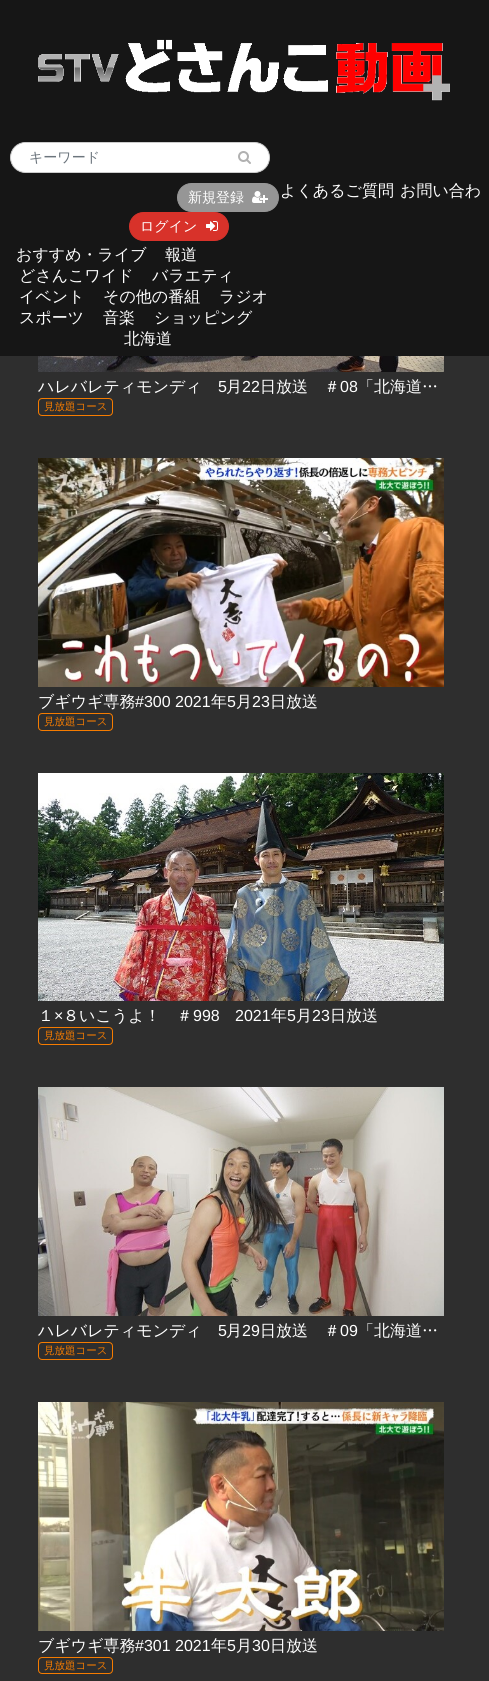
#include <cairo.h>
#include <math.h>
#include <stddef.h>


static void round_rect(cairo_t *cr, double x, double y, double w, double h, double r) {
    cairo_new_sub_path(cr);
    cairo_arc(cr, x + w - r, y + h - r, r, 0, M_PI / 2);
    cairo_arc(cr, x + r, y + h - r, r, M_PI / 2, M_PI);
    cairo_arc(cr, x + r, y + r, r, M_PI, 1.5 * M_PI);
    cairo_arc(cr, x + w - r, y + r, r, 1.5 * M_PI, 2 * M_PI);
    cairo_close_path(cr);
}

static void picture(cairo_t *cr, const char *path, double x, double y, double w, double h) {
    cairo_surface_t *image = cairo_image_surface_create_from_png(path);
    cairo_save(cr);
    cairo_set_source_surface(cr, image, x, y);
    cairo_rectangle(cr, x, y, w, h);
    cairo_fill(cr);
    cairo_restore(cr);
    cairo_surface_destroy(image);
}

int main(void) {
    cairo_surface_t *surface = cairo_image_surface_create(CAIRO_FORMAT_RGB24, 489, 1681);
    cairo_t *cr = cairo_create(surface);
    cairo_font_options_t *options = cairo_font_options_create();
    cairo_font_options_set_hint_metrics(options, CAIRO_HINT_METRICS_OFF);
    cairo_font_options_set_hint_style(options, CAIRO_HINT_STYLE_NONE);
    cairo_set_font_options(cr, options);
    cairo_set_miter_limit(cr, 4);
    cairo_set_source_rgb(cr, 0.18, 0.18, 0.18);
    cairo_paint(cr);
    cairo_set_source_rgb(cr, 0.086, 0.086, 0.086);
    cairo_rectangle(cr, 0, 0, 489, 356);
    cairo_fill(cr);
    picture(cr, "img1.png", 38, 39, 412, 62);
    cairo_set_source_rgb(cr, 1, 1, 1);
    round_rect(cr, 10.5, 142.5, 259, 30, 15);
    cairo_fill_preserve(cr);
    cairo_set_source_rgb(cr, 0.8, 0.8, 0.8);
    cairo_set_line_width(cr, 1);
    cairo_stroke(cr);
    cairo_set_source_rgb(cr, 1, 1, 1);
    cairo_new_path(cr);
    cairo_move_to(cr, 24, 143);
    cairo_line_to(cr, 231, 143);
    cairo_line_to(cr, 231, 171);
    cairo_line_to(cr, 24, 171);
    cairo_curve_to(cr, 22.5, 171, 21, 169.5, 21, 168);
    cairo_line_to(cr, 21, 146);
    cairo_curve_to(cr, 21, 144.5, 22.5, 143, 24, 143);
    cairo_close_path(cr);
    cairo_fill(cr);
    cairo_select_font_face(cr, "WenQuanYi Zen Hei Medium", CAIRO_FONT_SLANT_NORMAL, CAIRO_FONT_WEIGHT_NORMAL);
    cairo_set_font_size(cr, 14);
    cairo_set_source_rgb(cr, 0.424, 0.459, 0.49);
    cairo_move_to(cr, 29, 162);
    cairo_show_text(cr, "キーワード");
    picture(cr, "img2.png", 238, 151, 13, 13);
    cairo_set_source_rgb(cr, 0.588, 0.588, 0.588);
    round_rect(cr, 177.5, 183.5, 101, 28, 14);
    cairo_fill_preserve(cr);
    cairo_stroke(cr);
    cairo_set_source_rgb(cr, 1, 1, 1);
    cairo_move_to(cr, 188, 202);
    cairo_show_text(cr, "新規登録");
    picture(cr, "img3.png", 252, 191, 16, 12);
    cairo_set_source_rgb(cr, 0.847, 0.196, 0.165);
    round_rect(cr, 129.5, 212.5, 99, 28, 14);
    cairo_fill_preserve(cr);
    cairo_stroke(cr);
    cairo_set_source_rgb(cr, 1, 1, 1);
    cairo_move_to(cr, 140, 231);
    cairo_show_text(cr, "ログイン");
    picture(cr, "img4.png", 206, 221, 12, 10);
    cairo_set_font_size(cr, 16);
    cairo_move_to(cr, 280, 196);
    cairo_show_text(cr, "よくあるご質問");
    cairo_move_to(cr, 400, 196);
    cairo_show_text(cr, "お問い合わ");
    cairo_move_to(cr, 16, 260);
    cairo_show_text(cr, "おすすめ・ライブ");
    cairo_move_to(cr, 165, 260);
    cairo_show_text(cr, "報道");
    cairo_move_to(cr, 19, 281);
    cairo_show_text(cr, "どさんこワイド");
    cairo_move_to(cr, 152, 281);
    cairo_show_text(cr, "バラエティ");
    cairo_move_to(cr, 19, 302);
    cairo_show_text(cr, "イベント");
    cairo_move_to(cr, 103, 302);
    cairo_show_text(cr, "その他の番組");
    cairo_move_to(cr, 219, 302);
    cairo_show_text(cr, "ラジオ");
    cairo_move_to(cr, 19, 323);
    cairo_show_text(cr, "スポーツ");
    cairo_move_to(cr, 103, 323);
    cairo_show_text(cr, "音楽");
    cairo_move_to(cr, 154, 323);
    cairo_show_text(cr, "ショッピング");
    cairo_move_to(cr, 124, 344);
    cairo_show_text(cr, "北海道");
    picture(cr, "img5.png", 38, 356, 406, 16);
    cairo_move_to(cr, 38, 392);
    cairo_show_text(cr, "ハレバレティモンディ");
    cairo_select_font_face(cr, "Liberation Sans", CAIRO_FONT_SLANT_NORMAL, CAIRO_FONT_WEIGHT_NORMAL);
    cairo_move_to(cr, 218, 392);
    cairo_show_text(cr, "5");
    cairo_select_font_face(cr, "WenQuanYi Zen Hei Medium", CAIRO_FONT_SLANT_NORMAL, CAIRO_FONT_WEIGHT_NORMAL);
    cairo_move_to(cr, 226, 392);
    cairo_show_text(cr, "月");
    cairo_select_font_face(cr, "Liberation Sans", CAIRO_FONT_SLANT_NORMAL, CAIRO_FONT_WEIGHT_NORMAL);
    cairo_move_to(cr, 242, 392);
    cairo_show_text(cr, "22");
    cairo_select_font_face(cr, "WenQuanYi Zen Hei Medium", CAIRO_FONT_SLANT_NORMAL, CAIRO_FONT_WEIGHT_NORMAL);
    cairo_move_to(cr, 260, 392);
    cairo_show_text(cr, "日放送　＃");
    cairo_select_font_face(cr, "Liberation Sans", CAIRO_FONT_SLANT_NORMAL, CAIRO_FONT_WEIGHT_NORMAL);
    cairo_move_to(cr, 340, 392);
    cairo_show_text(cr, "08");
    cairo_select_font_face(cr, "WenQuanYi Zen Hei Medium", CAIRO_FONT_SLANT_NORMAL, CAIRO_FONT_WEIGHT_NORMAL);
    cairo_move_to(cr, 358, 392);
    cairo_show_text(cr, "「北海道…");
    round_rect(cr, 38.5, 398.5, 74, 17, 3.5);
    cairo_set_source_rgb(cr, 0.961, 0.486, 0);
    cairo_stroke(cr);
    cairo_set_font_size(cr, 10.5);
    cairo_move_to(cr, 44, 410);
    cairo_show_text(cr, "見放題コース");
    picture(cr, "img6.png", 38, 458, 406, 229);
    cairo_set_font_size(cr, 16);
    cairo_set_source_rgb(cr, 1, 1, 1);
    cairo_move_to(cr, 38, 707);
    cairo_show_text(cr, "ブギウギ専務");
    cairo_select_font_face(cr, "Liberation Sans", CAIRO_FONT_SLANT_NORMAL, CAIRO_FONT_WEIGHT_NORMAL);
    cairo_move_to(cr, 135, 707);
    cairo_show_text(cr, "#300 2021");
    cairo_select_font_face(cr, "WenQuanYi Zen Hei Medium", CAIRO_FONT_SLANT_NORMAL, CAIRO_FONT_WEIGHT_NORMAL);
    cairo_move_to(cr, 211, 707);
    cairo_show_text(cr, "年");
    cairo_select_font_face(cr, "Liberation Sans", CAIRO_FONT_SLANT_NORMAL, CAIRO_FONT_WEIGHT_NORMAL);
    cairo_move_to(cr, 227, 707);
    cairo_show_text(cr, "5");
    cairo_select_font_face(cr, "WenQuanYi Zen Hei Medium", CAIRO_FONT_SLANT_NORMAL, CAIRO_FONT_WEIGHT_NORMAL);
    cairo_move_to(cr, 236, 707);
    cairo_show_text(cr, "月");
    cairo_select_font_face(cr, "Liberation Sans", CAIRO_FONT_SLANT_NORMAL, CAIRO_FONT_WEIGHT_NORMAL);
    cairo_move_to(cr, 252, 707);
    cairo_show_text(cr, "23");
    cairo_select_font_face(cr, "WenQuanYi Zen Hei Medium", CAIRO_FONT_SLANT_NORMAL, CAIRO_FONT_WEIGHT_NORMAL);
    cairo_move_to(cr, 270, 707);
    cairo_show_text(cr, "日放送");
    round_rect(cr, 38.5, 713.5, 74, 17, 3.5);
    cairo_set_source_rgb(cr, 0.961, 0.486, 0);
    cairo_stroke(cr);
    cairo_set_font_size(cr, 10.5);
    cairo_move_to(cr, 44, 725);
    cairo_show_text(cr, "見放題コース");
    picture(cr, "img7.png", 38, 773, 406, 228);
    cairo_set_font_size(cr, 16);
    cairo_set_source_rgb(cr, 1, 1, 1);
    cairo_move_to(cr, 38, 1021);
    cairo_show_text(cr, "１");
    cairo_select_font_face(cr, "Liberation Sans", CAIRO_FONT_SLANT_NORMAL, CAIRO_FONT_WEIGHT_NORMAL);
    cairo_move_to(cr, 54, 1021);
    cairo_show_text(cr, "×");
    cairo_select_font_face(cr, "WenQuanYi Zen Hei Medium", CAIRO_FONT_SLANT_NORMAL, CAIRO_FONT_WEIGHT_NORMAL);
    cairo_move_to(cr, 63, 1021);
    cairo_show_text(cr, "８いこうよ！　＃");
    cairo_select_font_face(cr, "Liberation Sans", CAIRO_FONT_SLANT_NORMAL, CAIRO_FONT_WEIGHT_NORMAL);
    cairo_move_to(cr, 193, 1021);
    cairo_show_text(cr, "998");
    cairo_move_to(cr, 235, 1021);
    cairo_show_text(cr, "2021");
    cairo_select_font_face(cr, "WenQuanYi Zen Hei Medium", CAIRO_FONT_SLANT_NORMAL, CAIRO_FONT_WEIGHT_NORMAL);
    cairo_move_to(cr, 271, 1021);
    cairo_show_text(cr, "年");
    cairo_select_font_face(cr, "Liberation Sans", CAIRO_FONT_SLANT_NORMAL, CAIRO_FONT_WEIGHT_NORMAL);
    cairo_move_to(cr, 287, 1021);
    cairo_show_text(cr, "5");
    cairo_select_font_face(cr, "WenQuanYi Zen Hei Medium", CAIRO_FONT_SLANT_NORMAL, CAIRO_FONT_WEIGHT_NORMAL);
    cairo_move_to(cr, 296, 1021);
    cairo_show_text(cr, "月");
    cairo_select_font_face(cr, "Liberation Sans", CAIRO_FONT_SLANT_NORMAL, CAIRO_FONT_WEIGHT_NORMAL);
    cairo_move_to(cr, 312, 1021);
    cairo_show_text(cr, "23");
    cairo_select_font_face(cr, "WenQuanYi Zen Hei Medium", CAIRO_FONT_SLANT_NORMAL, CAIRO_FONT_WEIGHT_NORMAL);
    cairo_move_to(cr, 330, 1021);
    cairo_show_text(cr, "日放送");
    round_rect(cr, 38.5, 1027.5, 74, 17, 3.5);
    cairo_set_source_rgb(cr, 0.961, 0.486, 0);
    cairo_stroke(cr);
    cairo_set_font_size(cr, 10.5);
    cairo_move_to(cr, 44, 1039);
    cairo_show_text(cr, "見放題コース");
    picture(cr, "img8.png", 38, 1087, 406, 229);
    cairo_set_font_size(cr, 16);
    cairo_set_source_rgb(cr, 1, 1, 1);
    cairo_move_to(cr, 38, 1336);
    cairo_show_text(cr, "ハレバレティモンディ");
    cairo_select_font_face(cr, "Liberation Sans", CAIRO_FONT_SLANT_NORMAL, CAIRO_FONT_WEIGHT_NORMAL);
    cairo_move_to(cr, 218, 1336);
    cairo_show_text(cr, "5");
    cairo_select_font_face(cr, "WenQuanYi Zen Hei Medium", CAIRO_FONT_SLANT_NORMAL, CAIRO_FONT_WEIGHT_NORMAL);
    cairo_move_to(cr, 226, 1336);
    cairo_show_text(cr, "月");
    cairo_select_font_face(cr, "Liberation Sans", CAIRO_FONT_SLANT_NORMAL, CAIRO_FONT_WEIGHT_NORMAL);
    cairo_move_to(cr, 242, 1336);
    cairo_show_text(cr, "29");
    cairo_select_font_face(cr, "WenQuanYi Zen Hei Medium", CAIRO_FONT_SLANT_NORMAL, CAIRO_FONT_WEIGHT_NORMAL);
    cairo_move_to(cr, 260, 1336);
    cairo_show_text(cr, "日放送　＃");
    cairo_select_font_face(cr, "Liberation Sans", CAIRO_FONT_SLANT_NORMAL, CAIRO_FONT_WEIGHT_NORMAL);
    cairo_move_to(cr, 340, 1336);
    cairo_show_text(cr, "09");
    cairo_select_font_face(cr, "WenQuanYi Zen Hei Medium", CAIRO_FONT_SLANT_NORMAL, CAIRO_FONT_WEIGHT_NORMAL);
    cairo_move_to(cr, 358, 1336);
    cairo_show_text(cr, "「北海道…");
    round_rect(cr, 38.5, 1342.5, 74, 17, 3.5);
    cairo_set_source_rgb(cr, 0.961, 0.486, 0);
    cairo_stroke(cr);
    cairo_set_font_size(cr, 10.5);
    cairo_move_to(cr, 44, 1354);
    cairo_show_text(cr, "見放題コース");
    picture(cr, "img9.png", 38, 1402, 406, 229);
    cairo_set_font_size(cr, 16);
    cairo_set_source_rgb(cr, 1, 1, 1);
    cairo_move_to(cr, 38, 1651);
    cairo_show_text(cr, "ブギウギ専務");
    cairo_select_font_face(cr, "Liberation Sans", CAIRO_FONT_SLANT_NORMAL, CAIRO_FONT_WEIGHT_NORMAL);
    cairo_move_to(cr, 135, 1651);
    cairo_show_text(cr, "#301 2021");
    cairo_select_font_face(cr, "WenQuanYi Zen Hei Medium", CAIRO_FONT_SLANT_NORMAL, CAIRO_FONT_WEIGHT_NORMAL);
    cairo_move_to(cr, 211, 1651);
    cairo_show_text(cr, "年");
    cairo_select_font_face(cr, "Liberation Sans", CAIRO_FONT_SLANT_NORMAL, CAIRO_FONT_WEIGHT_NORMAL);
    cairo_move_to(cr, 227, 1651);
    cairo_show_text(cr, "5");
    cairo_select_font_face(cr, "WenQuanYi Zen Hei Medium", CAIRO_FONT_SLANT_NORMAL, CAIRO_FONT_WEIGHT_NORMAL);
    cairo_move_to(cr, 236, 1651);
    cairo_show_text(cr, "月");
    cairo_select_font_face(cr, "Liberation Sans", CAIRO_FONT_SLANT_NORMAL, CAIRO_FONT_WEIGHT_NORMAL);
    cairo_move_to(cr, 252, 1651);
    cairo_show_text(cr, "30");
    cairo_select_font_face(cr, "WenQuanYi Zen Hei Medium", CAIRO_FONT_SLANT_NORMAL, CAIRO_FONT_WEIGHT_NORMAL);
    cairo_move_to(cr, 270, 1651);
    cairo_show_text(cr, "日放送");
    round_rect(cr, 38.5, 1657.5, 74, 16, 3.5);
    cairo_set_source_rgb(cr, 0.961, 0.486, 0);
    cairo_stroke(cr);
    cairo_set_font_size(cr, 10.5);
    cairo_move_to(cr, 44, 1669);
    cairo_show_text(cr, "見放題コース");
    cairo_surface_write_to_png(surface, "page.png");
    cairo_font_options_destroy(options);
    cairo_destroy(cr);
    cairo_surface_destroy(surface);
    return 0;
}
